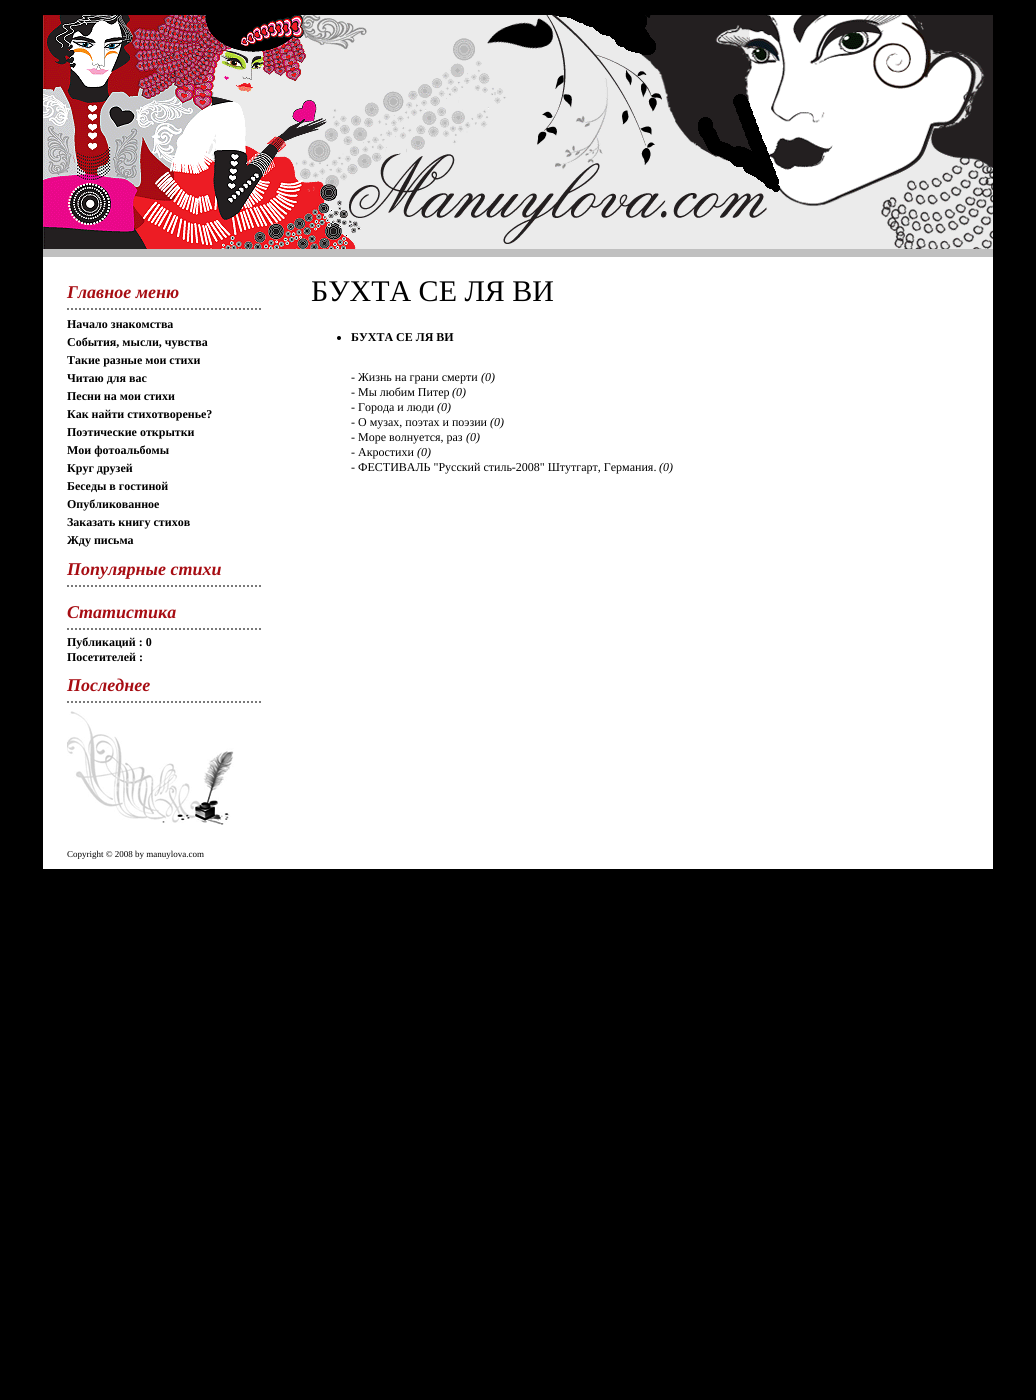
#include <cairo.h>
#include <math.h>
#include <stddef.h>


static void picture(cairo_t *cr, const char *path, double x, double y, double w, double h) {
    cairo_surface_t *image = cairo_image_surface_create_from_png(path);
    cairo_save(cr);
    cairo_set_source_surface(cr, image, x, y);
    cairo_rectangle(cr, x, y, w, h);
    cairo_fill(cr);
    cairo_restore(cr);
    cairo_surface_destroy(image);
}

int main(void) {
    cairo_surface_t *surface = cairo_image_surface_create(CAIRO_FORMAT_RGB24, 1036, 1400);
    cairo_t *cr = cairo_create(surface);
    cairo_font_options_t *options = cairo_font_options_create();
    cairo_font_options_set_hint_metrics(options, CAIRO_HINT_METRICS_OFF);
    cairo_font_options_set_hint_style(options, CAIRO_HINT_STYLE_NONE);
    cairo_set_font_options(cr, options);
    cairo_set_miter_limit(cr, 4);
    cairo_set_source_rgb(cr, 0, 0, 0);
    cairo_paint(cr);
    cairo_set_source_rgb(cr, 1, 1, 1);
    cairo_rectangle(cr, 43, 257, 950, 612);
    cairo_fill(cr);
    picture(cr, "img1.png", 43, 15, 950, 234);
    cairo_set_source_rgb(cr, 0.753, 0.753, 0.753);
    cairo_rectangle(cr, 43, 249, 950, 8);
    cairo_fill(cr);
    cairo_new_path(cr);
    cairo_move_to(cr, 67, 309);
    cairo_line_to(cr, 261, 309);
    cairo_set_source_rgb(cr, 0.475, 0.475, 0.475);
    cairo_set_dash(cr, (double[]){2, 2}, 2, 0);
    cairo_stroke(cr);
    cairo_select_font_face(cr, "Liberation Serif", CAIRO_FONT_SLANT_ITALIC, CAIRO_FONT_WEIGHT_BOLD);
    cairo_set_font_size(cr, 18);
    cairo_set_source_rgb(cr, 0.655, 0.051, 0.075);
    cairo_move_to(cr, 67, 298);
    cairo_show_text(cr, "Главное меню");
    cairo_select_font_face(cr, "Liberation Serif", CAIRO_FONT_SLANT_NORMAL, CAIRO_FONT_WEIGHT_BOLD);
    cairo_set_font_size(cr, 12);
    cairo_set_source_rgb(cr, 0, 0, 0);
    cairo_move_to(cr, 67, 328);
    cairo_show_text(cr, "Начало знакомства");
    cairo_move_to(cr, 67, 346);
    cairo_show_text(cr, "События, мысли, чувства");
    cairo_move_to(cr, 67, 364);
    cairo_show_text(cr, "Такие разные мои стихи");
    cairo_move_to(cr, 67, 382);
    cairo_show_text(cr, "Читаю для вас");
    cairo_move_to(cr, 67, 400);
    cairo_show_text(cr, "Песни на мои стихи");
    cairo_move_to(cr, 67, 418);
    cairo_show_text(cr, "Как найти стихотворенье?");
    cairo_move_to(cr, 67, 436);
    cairo_show_text(cr, "Поэтические открытки");
    cairo_move_to(cr, 67, 454);
    cairo_show_text(cr, "Мои фотоальбомы");
    cairo_move_to(cr, 67, 472);
    cairo_show_text(cr, "Круг друзей");
    cairo_move_to(cr, 67, 490);
    cairo_show_text(cr, "Беседы в гостиной");
    cairo_move_to(cr, 67, 508);
    cairo_show_text(cr, "Опубликованное");
    cairo_move_to(cr, 67, 526);
    cairo_show_text(cr, "Заказать книгу стихов");
    cairo_move_to(cr, 67, 544);
    cairo_show_text(cr, "Жду письма");
    cairo_new_path(cr);
    cairo_move_to(cr, 67, 586);
    cairo_line_to(cr, 261, 586);
    cairo_set_source_rgb(cr, 0.475, 0.475, 0.475);
    cairo_stroke(cr);
    cairo_select_font_face(cr, "Liberation Serif", CAIRO_FONT_SLANT_ITALIC, CAIRO_FONT_WEIGHT_BOLD);
    cairo_set_font_size(cr, 18);
    cairo_set_source_rgb(cr, 0.655, 0.051, 0.075);
    cairo_move_to(cr, 67, 575);
    cairo_show_text(cr, "Популярные стихи");
    cairo_new_path(cr);
    cairo_move_to(cr, 67, 629);
    cairo_line_to(cr, 261, 629);
    cairo_set_source_rgb(cr, 0.475, 0.475, 0.475);
    cairo_stroke(cr);
    cairo_set_source_rgb(cr, 0.655, 0.051, 0.075);
    cairo_move_to(cr, 67, 618);
    cairo_show_text(cr, "Статистика");
    cairo_select_font_face(cr, "Liberation Serif", CAIRO_FONT_SLANT_NORMAL, CAIRO_FONT_WEIGHT_BOLD);
    cairo_set_font_size(cr, 12);
    cairo_set_source_rgb(cr, 0, 0, 0);
    cairo_move_to(cr, 67, 646);
    cairo_show_text(cr, "Публикаций : 0");
    cairo_move_to(cr, 67, 661);
    cairo_show_text(cr, "Посетителей :");
    cairo_new_path(cr);
    cairo_move_to(cr, 67, 702);
    cairo_line_to(cr, 261, 702);
    cairo_set_source_rgb(cr, 0.475, 0.475, 0.475);
    cairo_stroke(cr);
    cairo_select_font_face(cr, "Liberation Serif", CAIRO_FONT_SLANT_ITALIC, CAIRO_FONT_WEIGHT_BOLD);
    cairo_set_font_size(cr, 18);
    cairo_set_source_rgb(cr, 0.655, 0.051, 0.075);
    cairo_move_to(cr, 67, 691);
    cairo_show_text(cr, "Последнee");
    picture(cr, "img2.png", 67, 711, 167, 114);
    cairo_select_font_face(cr, "Liberation Serif", CAIRO_FONT_SLANT_NORMAL, CAIRO_FONT_WEIGHT_NORMAL);
    cairo_set_font_size(cr, 30);
    cairo_set_source_rgb(cr, 0, 0, 0);
    cairo_move_to(cr, 311, 301);
    cairo_show_text(cr, "БУХТА СЕ ЛЯ ВИ");
    cairo_new_path(cr);
    cairo_arc(cr, 339, 338, 2, 0, 2 * M_PI);
    cairo_fill(cr);
    cairo_select_font_face(cr, "Liberation Serif", CAIRO_FONT_SLANT_NORMAL, CAIRO_FONT_WEIGHT_BOLD);
    cairo_set_font_size(cr, 12);
    cairo_move_to(cr, 351, 341);
    cairo_show_text(cr, "БУХТА СЕ ЛЯ ВИ");
    cairo_select_font_face(cr, "Liberation Serif", CAIRO_FONT_SLANT_NORMAL, CAIRO_FONT_WEIGHT_NORMAL);
    cairo_move_to(cr, 351, 381);
    cairo_show_text(cr, "- Жизнь на грани смерти");
    cairo_select_font_face(cr, "Liberation Serif", CAIRO_FONT_SLANT_ITALIC, CAIRO_FONT_WEIGHT_NORMAL);
    cairo_move_to(cr, 481, 381);
    cairo_show_text(cr, "(0)");
    cairo_select_font_face(cr, "Liberation Serif", CAIRO_FONT_SLANT_NORMAL, CAIRO_FONT_WEIGHT_NORMAL);
    cairo_move_to(cr, 351, 396);
    cairo_show_text(cr, "- Мы любим Питер");
    cairo_select_font_face(cr, "Liberation Serif", CAIRO_FONT_SLANT_ITALIC, CAIRO_FONT_WEIGHT_NORMAL);
    cairo_move_to(cr, 452, 396);
    cairo_show_text(cr, "(0)");
    cairo_select_font_face(cr, "Liberation Serif", CAIRO_FONT_SLANT_NORMAL, CAIRO_FONT_WEIGHT_NORMAL);
    cairo_move_to(cr, 351, 411);
    cairo_show_text(cr, "- Города и люди");
    cairo_select_font_face(cr, "Liberation Serif", CAIRO_FONT_SLANT_ITALIC, CAIRO_FONT_WEIGHT_NORMAL);
    cairo_move_to(cr, 437, 411);
    cairo_show_text(cr, "(0)");
    cairo_select_font_face(cr, "Liberation Serif", CAIRO_FONT_SLANT_NORMAL, CAIRO_FONT_WEIGHT_NORMAL);
    cairo_move_to(cr, 351, 426);
    cairo_show_text(cr, "- О музах, поэтах и поэзии");
    cairo_select_font_face(cr, "Liberation Serif", CAIRO_FONT_SLANT_ITALIC, CAIRO_FONT_WEIGHT_NORMAL);
    cairo_move_to(cr, 490, 426);
    cairo_show_text(cr, "(0)");
    cairo_select_font_face(cr, "Liberation Serif", CAIRO_FONT_SLANT_NORMAL, CAIRO_FONT_WEIGHT_NORMAL);
    cairo_move_to(cr, 351, 441);
    cairo_show_text(cr, "- Море волнуется, раз");
    cairo_select_font_face(cr, "Liberation Serif", CAIRO_FONT_SLANT_ITALIC, CAIRO_FONT_WEIGHT_NORMAL);
    cairo_move_to(cr, 466, 441);
    cairo_show_text(cr, "(0)");
    cairo_select_font_face(cr, "Liberation Serif", CAIRO_FONT_SLANT_NORMAL, CAIRO_FONT_WEIGHT_NORMAL);
    cairo_move_to(cr, 351, 456);
    cairo_show_text(cr, "- Акростихи");
    cairo_select_font_face(cr, "Liberation Serif", CAIRO_FONT_SLANT_ITALIC, CAIRO_FONT_WEIGHT_NORMAL);
    cairo_move_to(cr, 417, 456);
    cairo_show_text(cr, "(0)");
    cairo_select_font_face(cr, "Liberation Serif", CAIRO_FONT_SLANT_NORMAL, CAIRO_FONT_WEIGHT_NORMAL);
    cairo_move_to(cr, 351, 471);
    cairo_show_text(cr, "- ФЕСТИВАЛЬ \"Русский стиль-2008\" Штутгарт, Германия.");
    cairo_select_font_face(cr, "Liberation Serif", CAIRO_FONT_SLANT_ITALIC, CAIRO_FONT_WEIGHT_NORMAL);
    cairo_move_to(cr, 659, 471);
    cairo_show_text(cr, "(0)");
    cairo_select_font_face(cr, "Liberation Serif", CAIRO_FONT_SLANT_NORMAL, CAIRO_FONT_WEIGHT_NORMAL);
    cairo_set_font_size(cr, 9);
    cairo_move_to(cr, 67, 857);
    cairo_show_text(cr, "Copyright © 2008 by manuylova.com");
    cairo_surface_write_to_png(surface, "page.png");
    cairo_font_options_destroy(options);
    cairo_destroy(cr);
    cairo_surface_destroy(surface);
    return 0;
}
